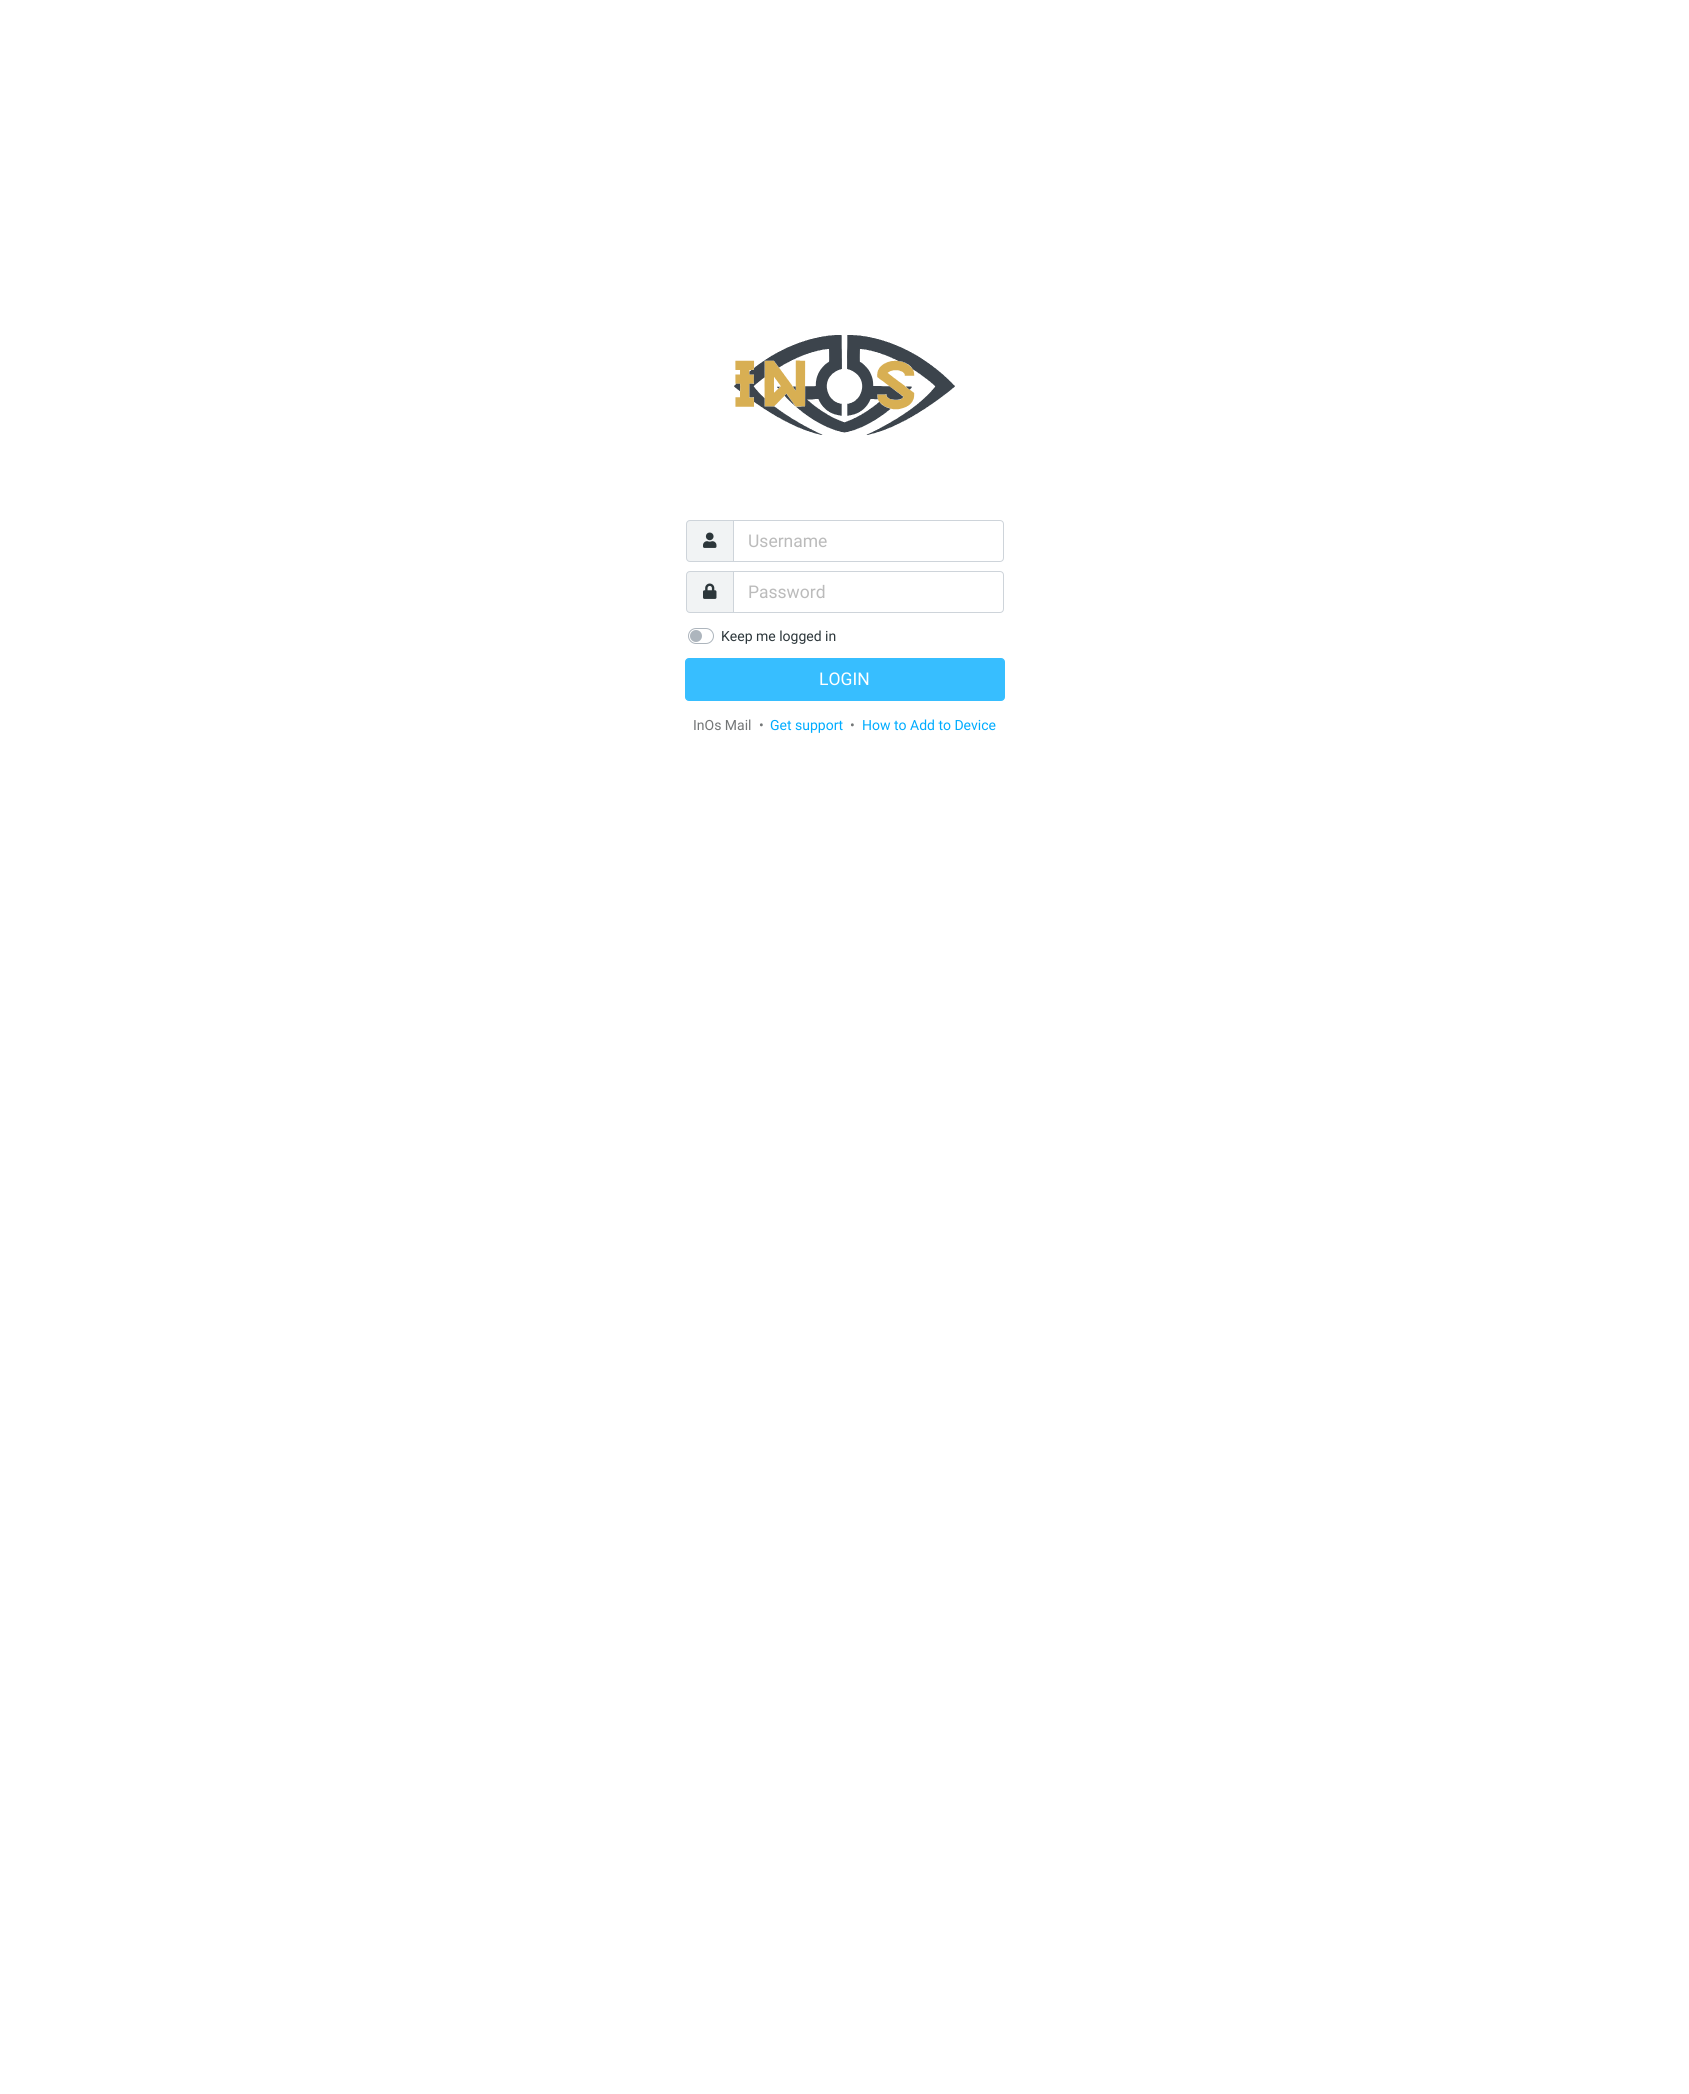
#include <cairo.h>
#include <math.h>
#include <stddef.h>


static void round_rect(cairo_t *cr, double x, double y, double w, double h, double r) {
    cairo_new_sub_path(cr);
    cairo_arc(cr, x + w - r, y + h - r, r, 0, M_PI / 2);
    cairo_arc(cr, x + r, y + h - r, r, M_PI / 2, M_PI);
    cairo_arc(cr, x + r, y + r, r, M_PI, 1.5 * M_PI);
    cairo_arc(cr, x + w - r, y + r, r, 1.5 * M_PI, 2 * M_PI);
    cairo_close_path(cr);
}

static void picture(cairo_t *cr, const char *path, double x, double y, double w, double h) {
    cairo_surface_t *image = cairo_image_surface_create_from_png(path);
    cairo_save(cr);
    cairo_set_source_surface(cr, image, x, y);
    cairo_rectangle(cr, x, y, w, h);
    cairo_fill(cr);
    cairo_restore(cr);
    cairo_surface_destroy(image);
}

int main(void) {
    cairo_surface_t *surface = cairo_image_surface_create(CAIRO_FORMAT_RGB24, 1689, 2094);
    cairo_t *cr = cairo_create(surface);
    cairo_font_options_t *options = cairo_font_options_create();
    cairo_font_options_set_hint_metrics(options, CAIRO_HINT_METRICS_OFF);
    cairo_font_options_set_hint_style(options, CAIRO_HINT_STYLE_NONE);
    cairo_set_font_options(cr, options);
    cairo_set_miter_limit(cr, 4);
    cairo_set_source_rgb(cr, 1, 1, 1);
    cairo_paint(cr);
    picture(cr, "img1.png", 734, 335, 221, 100);
    cairo_set_source_rgb(cr, 0.945, 0.953, 0.957);
    cairo_new_path(cr);
    cairo_move_to(cr, 690, 520.5);
    cairo_line_to(cr, 733.5, 520.5);
    cairo_line_to(cr, 733.5, 561.5);
    cairo_line_to(cr, 690, 561.5);
    cairo_curve_to(cr, 688, 561.5, 686.5, 560, 686.5, 558);
    cairo_line_to(cr, 686.5, 524);
    cairo_curve_to(cr, 686.5, 522, 688, 520.5, 690, 520.5);
    cairo_close_path(cr);
    cairo_fill_preserve(cr);
    cairo_set_source_rgb(cr, 0.808, 0.831, 0.855);
    cairo_set_line_width(cr, 1);
    cairo_stroke(cr);
    picture(cr, "img2.png", 703, 532, 14, 16);
    cairo_new_path(cr);
    cairo_move_to(cr, 733.5, 520.5);
    cairo_line_to(cr, 1000, 520.5);
    cairo_curve_to(cr, 1002, 520.5, 1003.5, 522, 1003.5, 524);
    cairo_line_to(cr, 1003.5, 558);
    cairo_curve_to(cr, 1003.5, 560, 1002, 561.5, 1000, 561.5);
    cairo_line_to(cr, 733.5, 561.5);
    cairo_close_path(cr);
    cairo_stroke(cr);
    cairo_select_font_face(cr, "Roboto", CAIRO_FONT_SLANT_NORMAL, CAIRO_FONT_WEIGHT_NORMAL);
    cairo_set_font_size(cr, 17.5);
    cairo_set_source_rgb(cr, 0.733, 0.733, 0.733);
    cairo_move_to(cr, 748, 547);
    cairo_show_text(cr, "Username");
    cairo_set_source_rgb(cr, 0.945, 0.953, 0.957);
    cairo_new_path(cr);
    cairo_move_to(cr, 690, 571.5);
    cairo_line_to(cr, 733.5, 571.5);
    cairo_line_to(cr, 733.5, 612.5);
    cairo_line_to(cr, 690, 612.5);
    cairo_curve_to(cr, 688, 612.5, 686.5, 611, 686.5, 609);
    cairo_line_to(cr, 686.5, 575);
    cairo_curve_to(cr, 686.5, 573, 688, 571.5, 690, 571.5);
    cairo_close_path(cr);
    cairo_fill_preserve(cr);
    cairo_set_source_rgb(cr, 0.808, 0.831, 0.855);
    cairo_stroke(cr);
    picture(cr, "img3.png", 703, 583, 14, 16);
    cairo_new_path(cr);
    cairo_move_to(cr, 733.5, 571.5);
    cairo_line_to(cr, 1000, 571.5);
    cairo_curve_to(cr, 1002, 571.5, 1003.5, 573, 1003.5, 575);
    cairo_line_to(cr, 1003.5, 609);
    cairo_curve_to(cr, 1003.5, 611, 1002, 612.5, 1000, 612.5);
    cairo_line_to(cr, 733.5, 612.5);
    cairo_close_path(cr);
    cairo_stroke(cr);
    cairo_set_source_rgb(cr, 0.733, 0.733, 0.733);
    cairo_move_to(cr, 748, 598);
    cairo_show_text(cr, "Password");
    round_rect(cr, 688.5, 628.5, 25, 15, 7.5);
    cairo_set_source_rgb(cr, 0.678, 0.71, 0.741);
    cairo_stroke(cr);
    cairo_arc(cr, 696, 636, 6, 0, 2 * M_PI);
    cairo_fill(cr);
    cairo_set_font_size(cr, 14);
    cairo_set_source_rgb(cr, 0.173, 0.212, 0.227);
    cairo_move_to(cr, 721, 641);
    cairo_show_text(cr, "Keep me logged in");
    cairo_set_source_rgb(cr, 0.216, 0.745, 1);
    round_rect(cr, 685.5, 658.5, 319, 42, 3.5);
    cairo_fill_preserve(cr);
    cairo_stroke(cr);
    cairo_set_font_size(cr, 17.5);
    cairo_set_source_rgb(cr, 1, 1, 1);
    cairo_move_to(cr, 819, 685);
    cairo_show_text(cr, "LOGIN");
    cairo_set_font_size(cr, 14);
    cairo_set_source_rgb(cr, 0.451, 0.463, 0.467);
    cairo_move_to(cr, 693, 730);
    cairo_show_text(cr, "InOs Mail");
    cairo_move_to(cr, 759, 730);
    cairo_show_text(cr, "•");
    cairo_set_source_rgb(cr, 0, 0.675, 1);
    cairo_move_to(cr, 770, 730);
    cairo_show_text(cr, "Get support");
    cairo_set_source_rgb(cr, 0.451, 0.463, 0.467);
    cairo_move_to(cr, 850, 730);
    cairo_show_text(cr, "•");
    cairo_set_source_rgb(cr, 0, 0.675, 1);
    cairo_move_to(cr, 862, 730);
    cairo_show_text(cr, "How to Add to Device");
    cairo_surface_write_to_png(surface, "page.png");
    cairo_font_options_destroy(options);
    cairo_destroy(cr);
    cairo_surface_destroy(surface);
    return 0;
}
